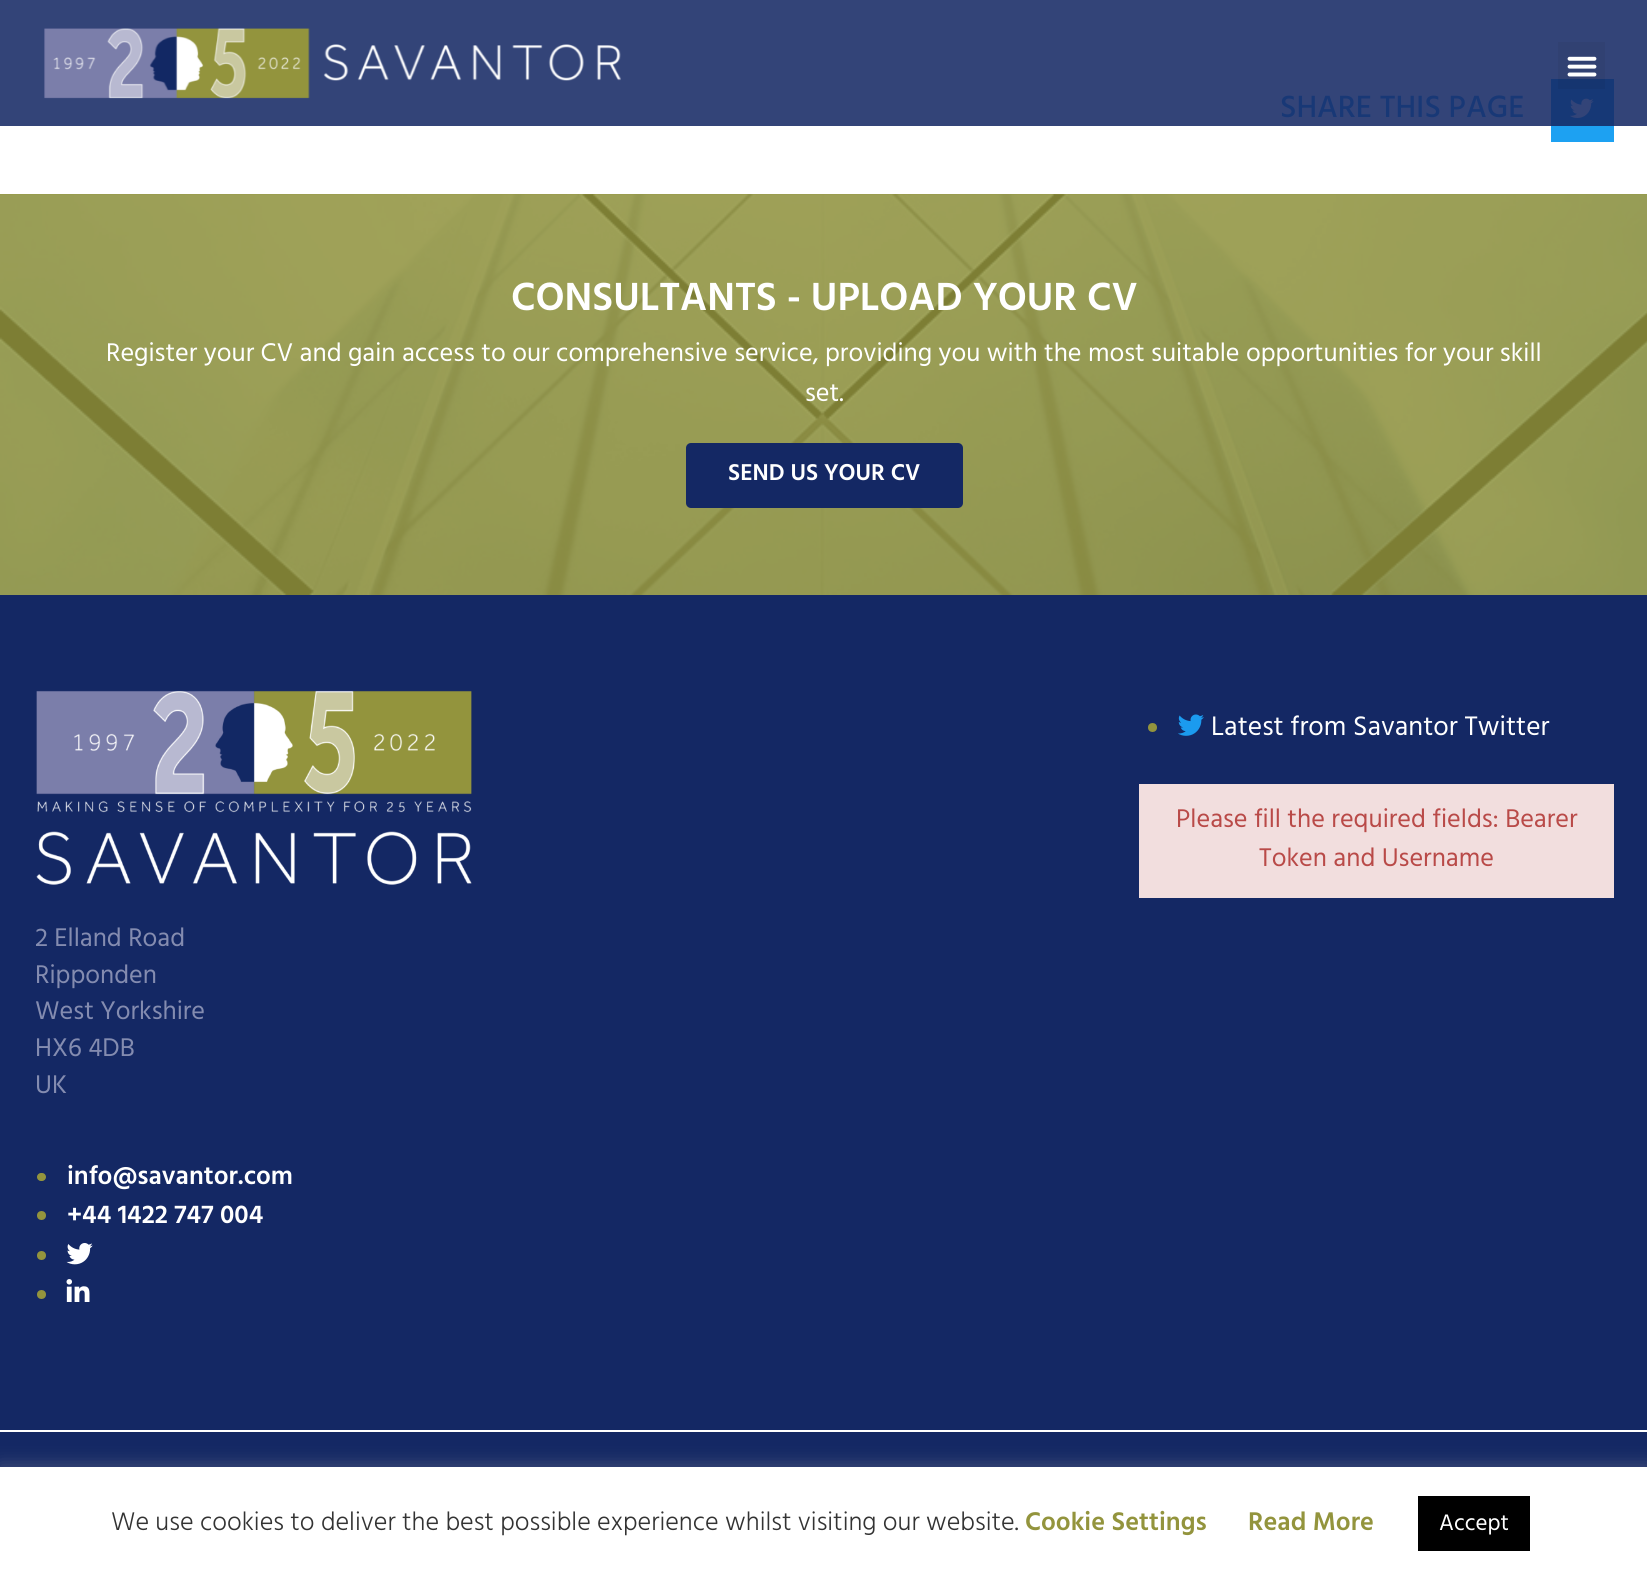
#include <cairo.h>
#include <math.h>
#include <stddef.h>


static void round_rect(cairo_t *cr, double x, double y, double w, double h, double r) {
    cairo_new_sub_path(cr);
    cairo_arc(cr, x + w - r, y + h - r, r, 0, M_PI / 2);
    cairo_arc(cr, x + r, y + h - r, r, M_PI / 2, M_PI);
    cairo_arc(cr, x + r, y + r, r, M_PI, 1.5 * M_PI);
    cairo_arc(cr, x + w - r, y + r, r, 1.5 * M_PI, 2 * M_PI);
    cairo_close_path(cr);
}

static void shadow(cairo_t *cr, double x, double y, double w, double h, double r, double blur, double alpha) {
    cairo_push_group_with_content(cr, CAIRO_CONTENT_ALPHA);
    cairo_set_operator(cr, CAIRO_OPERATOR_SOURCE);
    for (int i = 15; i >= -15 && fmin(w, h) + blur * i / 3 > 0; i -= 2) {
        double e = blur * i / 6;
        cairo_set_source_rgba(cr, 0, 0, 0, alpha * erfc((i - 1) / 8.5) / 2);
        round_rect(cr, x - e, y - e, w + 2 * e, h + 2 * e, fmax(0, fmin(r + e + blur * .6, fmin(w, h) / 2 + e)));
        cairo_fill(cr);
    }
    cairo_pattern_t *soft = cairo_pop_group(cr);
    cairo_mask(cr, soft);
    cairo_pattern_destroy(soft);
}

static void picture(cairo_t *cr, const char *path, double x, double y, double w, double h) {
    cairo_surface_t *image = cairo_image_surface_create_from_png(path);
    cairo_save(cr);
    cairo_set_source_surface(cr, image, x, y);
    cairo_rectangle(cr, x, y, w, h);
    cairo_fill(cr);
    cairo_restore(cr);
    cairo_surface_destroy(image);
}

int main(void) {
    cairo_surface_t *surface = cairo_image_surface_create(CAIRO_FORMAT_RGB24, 1647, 1579);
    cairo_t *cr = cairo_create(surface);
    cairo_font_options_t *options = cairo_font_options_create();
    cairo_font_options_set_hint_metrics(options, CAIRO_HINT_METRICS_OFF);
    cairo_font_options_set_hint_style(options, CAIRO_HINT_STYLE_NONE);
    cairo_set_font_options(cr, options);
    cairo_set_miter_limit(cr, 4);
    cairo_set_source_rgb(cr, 1, 1, 1);
    cairo_paint(cr);
    cairo_set_source_rgb(cr, 0.2, 0.267, 0.471);
    cairo_rectangle(cr, 0, 0, 1647, 126);
    cairo_fill(cr);
    picture(cr, "img1.png", 44, 28, 577, 71);
    cairo_set_source_rgb(cr, 0.086, 0.22, 0.463);
    cairo_rectangle(cr, 1551, 79, 63, 47);
    cairo_fill(cr);
    cairo_set_source_rgba(cr, 0, 0, 0, 0.05);
    cairo_rectangle(cr, 1558, 42, 47, 47);
    cairo_fill(cr);
    picture(cr, "img2.png", 1567, 56, 30, 21);
    cairo_select_font_face(cr, "Hind Medium", CAIRO_FONT_SLANT_NORMAL, CAIRO_FONT_WEIGHT_NORMAL);
    cairo_set_font_size(cr, 31.5);
    cairo_set_source_rgb(cr, 0.094, 0.22, 0.463);
    cairo_move_to(cr, 1280, 117);
    cairo_show_text(cr, "SHARE THIS PAGE");
    cairo_set_source_rgb(cr, 0.114, 0.631, 0.949);
    cairo_rectangle(cr, 1551, 126, 63, 16);
    cairo_fill(cr);
    picture(cr, "img3.png", 1570, 98, 24, 20);
    cairo_set_source_rgb(cr, 0.576, 0.58, 0.239);
    cairo_rectangle(cr, 0, 194, 1647, 401);
    cairo_fill(cr);
    picture(cr, "img4.png", 0, 194, 1647, 401);
    cairo_select_font_face(cr, "Hind SemiBold", CAIRO_FONT_SLANT_NORMAL, CAIRO_FONT_WEIGHT_NORMAL);
    cairo_set_font_size(cr, 40.25);
    cairo_set_source_rgb(cr, 1, 1, 1);
    cairo_move_to(cr, 511, 310);
    cairo_show_text(cr, "CONSULTANTS - UPLOAD YOUR CV");
    cairo_select_font_face(cr, "Hind", CAIRO_FONT_SLANT_NORMAL, CAIRO_FONT_WEIGHT_NORMAL);
    cairo_set_font_size(cr, 26.25);
    cairo_move_to(cr, 106, 361);
    cairo_show_text(cr, "Register your CV and gain access to our comprehensive service, providing you with the most suitable opportunities for your skill");
    cairo_move_to(cr, 805, 401);
    cairo_show_text(cr, "set.");
    cairo_set_source_rgb(cr, 0.082, 0.157, 0.392);
    round_rect(cr, 686, 443, 277, 65, 5);
    cairo_fill(cr);
    cairo_select_font_face(cr, "Hind SemiBold", CAIRO_FONT_SLANT_NORMAL, CAIRO_FONT_WEIGHT_NORMAL);
    cairo_set_font_size(cr, 23.5);
    cairo_set_source_rgb(cr, 1, 1, 1);
    cairo_move_to(cr, 728, 480);
    cairo_show_text(cr, "SEND US YOUR CV");
    cairo_set_source_rgb(cr, 0.082, 0.157, 0.392);
    cairo_rectangle(cr, 0, 595, 1647, 835);
    cairo_fill(cr);
    cairo_set_source_rgb(cr, 0.576, 0.58, 0.239);
    cairo_arc(cr, 1152.5, 727.5, 4.5, 0, 2 * M_PI);
    cairo_fill(cr);
    picture(cr, "img5.png", 1178, 714, 26, 22);
    cairo_select_font_face(cr, "Hind", CAIRO_FONT_SLANT_NORMAL, CAIRO_FONT_WEIGHT_NORMAL);
    cairo_set_font_size(cr, 27.5);
    cairo_set_source_rgb(cr, 1, 1, 1);
    cairo_move_to(cr, 1211, 735);
    cairo_show_text(cr, "Latest from Savantor Twitter");
    cairo_set_source_rgb(cr, 0.949, 0.871, 0.871);
    cairo_rectangle(cr, 1139, 784, 475, 114);
    cairo_fill(cr);
    cairo_set_font_size(cr, 26.25);
    cairo_set_source_rgb(cr, 0.725, 0.29, 0.282);
    cairo_move_to(cr, 1176, 827);
    cairo_show_text(cr, "Please fill the required fields: Bearer");
    cairo_move_to(cr, 1259, 866);
    cairo_show_text(cr, "Token and Username");
    picture(cr, "img6.png", 36, 690, 436, 195);
    cairo_set_source_rgb(cr, 0.518, 0.549, 0.69);
    cairo_move_to(cr, 35, 946);
    cairo_show_text(cr, "2 Elland Road");
    cairo_move_to(cr, 35, 983);
    cairo_show_text(cr, "Ripponden");
    cairo_move_to(cr, 35, 1019);
    cairo_show_text(cr, "West Yorkshire");
    cairo_move_to(cr, 35, 1056);
    cairo_show_text(cr, "HX6 4DB");
    cairo_move_to(cr, 35, 1093);
    cairo_show_text(cr, "UK");
    cairo_set_source_rgb(cr, 0.576, 0.58, 0.239);
    round_rect(cr, 37, 1173, 9, 8, 4);
    cairo_fill(cr);
    cairo_select_font_face(cr, "Hind SemiBold", CAIRO_FONT_SLANT_NORMAL, CAIRO_FONT_WEIGHT_NORMAL);
    cairo_set_source_rgb(cr, 1, 1, 1);
    cairo_move_to(cr, 67, 1184);
    cairo_show_text(cr, "info@savantor.com");
    cairo_set_source_rgb(cr, 0.576, 0.58, 0.239);
    cairo_new_path(cr);
    cairo_arc(cr, 41.5, 1215.5, 4.5, 0, 2 * M_PI);
    cairo_fill(cr);
    cairo_set_source_rgb(cr, 1, 1, 1);
    cairo_move_to(cr, 67, 1223);
    cairo_show_text(cr, "+44 1422 747 004");
    cairo_set_source_rgb(cr, 0.576, 0.58, 0.239);
    cairo_new_path(cr);
    cairo_arc(cr, 41.5, 1255.5, 4.5, 0, 2 * M_PI);
    cairo_fill(cr);
    picture(cr, "img7.png", 66, 1243, 27, 22);
    cairo_arc(cr, 41.5, 1294.5, 4.5, 0, 2 * M_PI);
    cairo_fill(cr);
    picture(cr, "img8.png", 66, 1279, 24, 23);
    cairo_set_source_rgb(cr, 0.082, 0.157, 0.392);
    cairo_rectangle(cr, 0, 1432, 1647, 35);
    cairo_fill(cr);
    cairo_set_source_rgb(cr, 0.675, 0.671, 0.671);
    shadow(cr, 0, 1465, 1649, 114, 0, 9, 0.3);
    cairo_set_source_rgb(cr, 1, 1, 1);
    cairo_rectangle(cr, 0, 1467, 1647, 112);
    cairo_fill(cr);
    cairo_select_font_face(cr, "Hind Light", CAIRO_FONT_SLANT_NORMAL, CAIRO_FONT_WEIGHT_NORMAL);
    cairo_set_source_rgb(cr, 0.2, 0.2, 0.2);
    cairo_move_to(cr, 111, 1530);
    cairo_show_text(cr, "We use cookies to deliver the best possible experience whilst visiting our website.");
    cairo_select_font_face(cr, "Hind SemiBold", CAIRO_FONT_SLANT_NORMAL, CAIRO_FONT_WEIGHT_NORMAL);
    cairo_set_source_rgb(cr, 0.576, 0.58, 0.239);
    cairo_move_to(cr, 1025, 1530);
    cairo_show_text(cr, "Cookie Settings");
    cairo_move_to(cr, 1248, 1530);
    cairo_show_text(cr, "Read More");
    cairo_set_source_rgb(cr, 0, 0, 0);
    cairo_rectangle(cr, 1418, 1496, 112, 55);
    cairo_fill(cr);
    cairo_select_font_face(cr, "Hind", CAIRO_FONT_SLANT_NORMAL, CAIRO_FONT_WEIGHT_NORMAL);
    cairo_set_font_size(cr, 23);
    cairo_set_source_rgb(cr, 1, 1, 1);
    cairo_move_to(cr, 1439, 1530);
    cairo_show_text(cr, "Accept");
    cairo_surface_write_to_png(surface, "page.png");
    cairo_font_options_destroy(options);
    cairo_destroy(cr);
    cairo_surface_destroy(surface);
    return 0;
}
